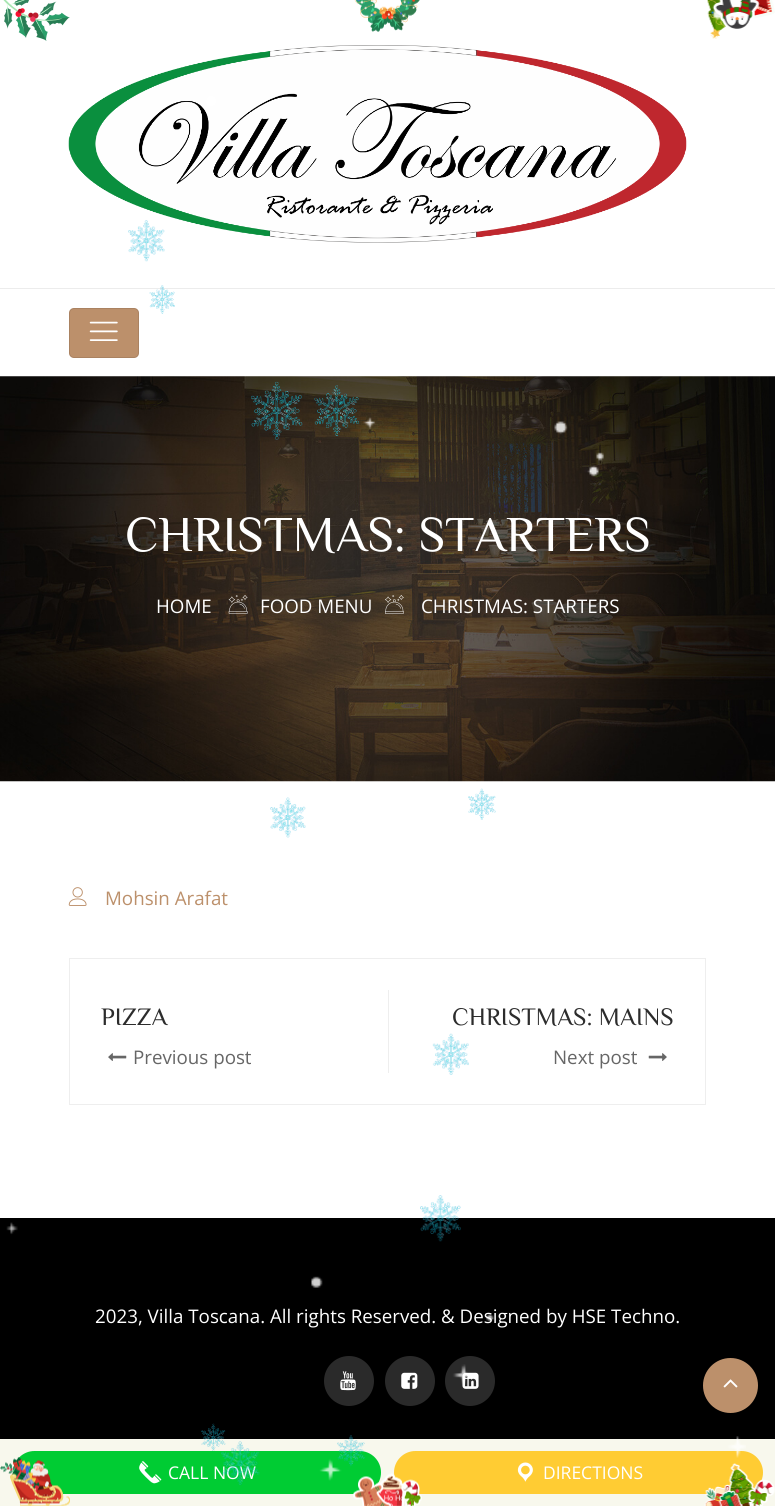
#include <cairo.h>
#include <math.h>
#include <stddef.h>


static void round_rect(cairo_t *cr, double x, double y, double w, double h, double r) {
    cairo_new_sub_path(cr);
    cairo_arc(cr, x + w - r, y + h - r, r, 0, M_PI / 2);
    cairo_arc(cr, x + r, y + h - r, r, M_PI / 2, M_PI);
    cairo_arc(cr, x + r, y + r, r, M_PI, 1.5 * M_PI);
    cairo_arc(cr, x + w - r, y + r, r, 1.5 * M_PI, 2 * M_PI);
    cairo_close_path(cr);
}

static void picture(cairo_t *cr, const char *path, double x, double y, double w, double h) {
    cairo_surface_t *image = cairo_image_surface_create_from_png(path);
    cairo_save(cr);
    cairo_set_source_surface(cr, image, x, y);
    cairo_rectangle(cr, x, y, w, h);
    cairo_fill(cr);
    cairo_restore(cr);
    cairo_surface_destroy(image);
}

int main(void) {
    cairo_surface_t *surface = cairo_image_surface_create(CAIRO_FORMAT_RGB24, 775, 1506);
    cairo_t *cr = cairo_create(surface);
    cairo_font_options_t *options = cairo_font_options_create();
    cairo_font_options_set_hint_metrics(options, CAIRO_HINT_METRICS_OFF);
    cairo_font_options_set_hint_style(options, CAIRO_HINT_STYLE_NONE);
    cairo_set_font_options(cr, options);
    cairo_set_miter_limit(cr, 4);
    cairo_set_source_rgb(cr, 1, 1, 1);
    cairo_paint(cr);
    picture(cr, "img1.png", 3, 0, 67, 41);
    picture(cr, "img2.png", 354, 0, 66, 32);
    picture(cr, "img3.png", 707, 0, 68, 39);
    cairo_set_source_rgb(cr, 0.969, 0.969, 0.929);
    cairo_rectangle(cr, 0, 1439, 775, 67);
    cairo_fill(cr);
    cairo_set_source_rgb(cr, 0, 0.8, 0.2);
    round_rect(cr, 13, 1451, 368, 43, 21.5);
    cairo_fill(cr);
    picture(cr, "img4.png", 0, 1457, 70, 49);
    cairo_set_source_rgb(cr, 1, 0.8, 0.2);
    round_rect(cr, 394, 1451, 369, 43, 21.5);
    cairo_fill(cr);
    picture(cr, "img5.png", 353, 1473, 69, 33);
    picture(cr, "img6.png", 704, 1463, 71, 43);
    cairo_set_source_rgb(cr, 0.925, 0.925, 0.925);
    cairo_rectangle(cr, 0, 288, 775, 1);
    cairo_fill(cr);
    picture(cr, "img8.png", 68, 45, 619, 198);
    cairo_set_source_rgb(cr, 0.737, 0.565, 0.42);
    round_rect(cr, 69, 308, 70, 50, 5);
    cairo_fill(cr);
    round_rect(cr, 69.5, 308.5, 69, 49, 4.5);
    cairo_set_source_rgba(cr, 0, 0, 0, 0.1);
    cairo_set_line_width(cr, 1);
    cairo_stroke(cr);
    picture(cr, "img11.png", 89, 321, 29, 20);
    picture(cr, "img14.png", 0, 376, 775, 406);
    cairo_select_font_face(cr, "ZCOOL XiaoWei", CAIRO_FONT_SLANT_NORMAL, CAIRO_FONT_WEIGHT_NORMAL);
    cairo_set_font_size(cr, 50);
    cairo_set_source_rgb(cr, 1, 1, 1);
    cairo_move_to(cr, 125, 551);
    cairo_show_text(cr, "CHRISTMAS: STARTERS");
    cairo_select_font_face(cr, "Open Sans", CAIRO_FONT_SLANT_NORMAL, CAIRO_FONT_WEIGHT_NORMAL);
    cairo_set_font_size(cr, 18.75);
    cairo_move_to(cr, 156, 613);
    cairo_show_text(cr, "HOME");
    picture(cr, "img15.png", 228, 595, 20, 19);
    cairo_move_to(cr, 260, 613);
    cairo_show_text(cr, "FOOD MENU");
    picture(cr, "img16.png", 385, 595, 19, 19);
    cairo_move_to(cr, 421, 613);
    cairo_show_text(cr, "CHRISTMAS: STARTERS");
    picture(cr, "img19.png", 68, 887, 19, 19);
    cairo_set_source_rgb(cr, 0.737, 0.565, 0.42);
    cairo_move_to(cr, 105, 905);
    cairo_show_text(cr, "Mohsin Arafat");
    cairo_rectangle(cr, 69.5, 958.5, 636, 146);
    cairo_set_source_rgb(cr, 0.933, 0.933, 0.933);
    cairo_stroke(cr);
    cairo_select_font_face(cr, "ZCOOL XiaoWei", CAIRO_FONT_SLANT_NORMAL, CAIRO_FONT_WEIGHT_NORMAL);
    cairo_set_font_size(cr, 25);
    cairo_set_source_rgb(cr, 0.173, 0.173, 0.173);
    cairo_move_to(cr, 101, 1025);
    cairo_show_text(cr, "PIZZA");
    picture(cr, "img20.png", 108, 1053, 19, 8);
    cairo_select_font_face(cr, "Open Sans", CAIRO_FONT_SLANT_NORMAL, CAIRO_FONT_WEIGHT_NORMAL);
    cairo_set_font_size(cr, 18.75);
    cairo_set_source_rgb(cr, 0.4, 0.4, 0.4);
    cairo_move_to(cr, 133, 1064);
    cairo_show_text(cr, "Previous post");
    cairo_set_source_rgb(cr, 0.933, 0.933, 0.933);
    cairo_rectangle(cr, 388, 990, 1, 83);
    cairo_fill(cr);
    cairo_select_font_face(cr, "ZCOOL XiaoWei", CAIRO_FONT_SLANT_NORMAL, CAIRO_FONT_WEIGHT_NORMAL);
    cairo_set_font_size(cr, 25);
    cairo_set_source_rgb(cr, 0.173, 0.173, 0.173);
    cairo_move_to(cr, 452, 1025);
    cairo_show_text(cr, "CHRISTMAS: MAINS");
    cairo_select_font_face(cr, "Open Sans", CAIRO_FONT_SLANT_NORMAL, CAIRO_FONT_WEIGHT_NORMAL);
    cairo_set_font_size(cr, 18.75);
    cairo_set_source_rgb(cr, 0.4, 0.4, 0.4);
    cairo_move_to(cr, 553, 1064);
    cairo_show_text(cr, "Next post");
    picture(cr, "img21.png", 648, 1053, 19, 8);
    cairo_set_source_rgb(cr, 0, 0, 0);
    cairo_rectangle(cr, 0, 1218, 775, 221);
    cairo_fill(cr);
    cairo_set_source_rgb(cr, 1, 1, 1);
    cairo_move_to(cr, 95, 1323);
    cairo_show_text(cr, "2023, Villa Toscana. All rights Reserved. & Designed by HSE Techno.");
    cairo_set_source_rgb(cr, 0.165, 0.165, 0.165);
    cairo_new_path(cr);
    cairo_arc(cr, 349, 1381, 25, 0, 2 * M_PI);
    cairo_fill(cr);
    picture(cr, "img24.png", 340, 1371, 16, 20);
    cairo_arc(cr, 410, 1381, 25, 0, 2 * M_PI);
    cairo_fill(cr);
    picture(cr, "img25.png", 401, 1372, 17, 17);
    cairo_arc(cr, 470, 1381, 25, 0, 2 * M_PI);
    cairo_fill(cr);
    picture(cr, "img26.png", 462, 1372, 17, 17);
    cairo_set_source_rgb(cr, 0.737, 0.565, 0.42);
    cairo_arc(cr, 730.5, 1385.5, 27.5, 0, 2 * M_PI);
    cairo_fill(cr);
    picture(cr, "img27.png", 723, 1379, 15, 9);
    picture(cr, "img31.png", 139, 1461, 23, 23);
    cairo_set_font_size(cr, 17.5);
    cairo_set_source_rgb(cr, 1, 1, 1);
    cairo_move_to(cr, 168, 1479);
    cairo_show_text(cr, "CALL NOW");
    picture(cr, "img32.png", 517, 1462, 16, 20);
    cairo_move_to(cr, 543, 1479);
    cairo_show_text(cr, "DIRECTIONS");
    picture(cr, "img7.png", 6, 8, 740, 1473);
    picture(cr, "img9.png", 128, 220, 37, 42);
    picture(cr, "img10.png", 149, 285, 26, 29);
    picture(cr, "img12.png", 251, 381, 52, 59);
    picture(cr, "img13.png", 314, 385, 45, 52);
    picture(cr, "img17.png", 270, 797, 36, 41);
    picture(cr, "img18.png", 468, 788, 28, 32);
    picture(cr, "img22.png", 432, 1033, 37, 42);
    picture(cr, "img23.png", 420, 1195, 41, 47);
    picture(cr, "img29.png", 221, 1441, 39, 44);
    picture(cr, "img28.png", 201, 1423, 25, 28);
    picture(cr, "img30.png", 337, 1435, 28, 32);
    cairo_surface_write_to_png(surface, "page.png");
    cairo_font_options_destroy(options);
    cairo_destroy(cr);
    cairo_surface_destroy(surface);
    return 0;
}
